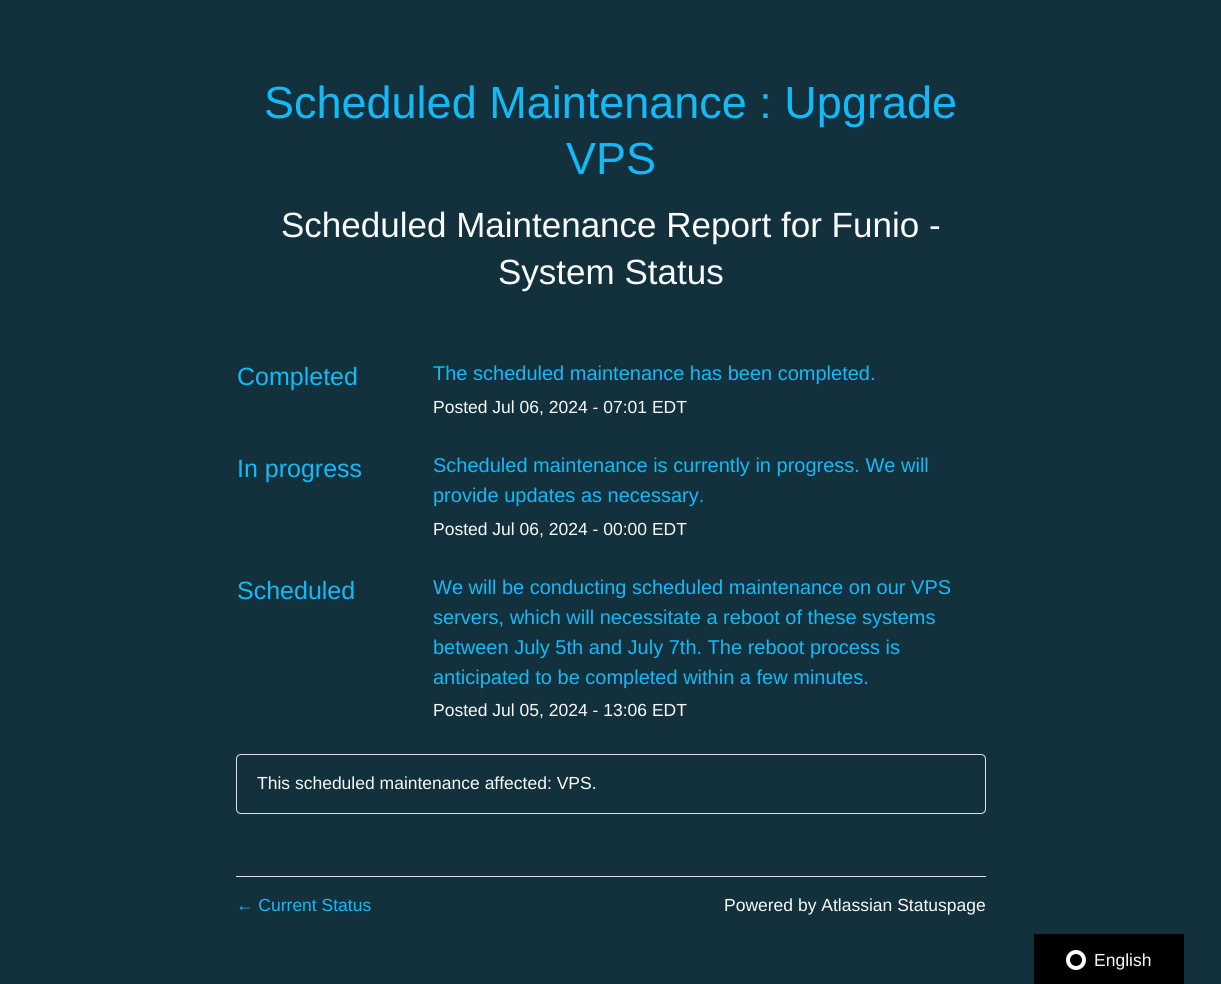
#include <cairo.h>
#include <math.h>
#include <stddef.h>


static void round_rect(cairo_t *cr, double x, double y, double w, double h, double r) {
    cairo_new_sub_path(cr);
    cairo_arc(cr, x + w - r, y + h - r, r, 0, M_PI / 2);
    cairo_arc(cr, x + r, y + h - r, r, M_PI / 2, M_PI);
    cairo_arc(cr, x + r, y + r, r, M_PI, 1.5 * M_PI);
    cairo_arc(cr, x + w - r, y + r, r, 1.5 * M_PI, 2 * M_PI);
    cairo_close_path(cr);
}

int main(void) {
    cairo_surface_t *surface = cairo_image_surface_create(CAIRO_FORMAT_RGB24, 1221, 984);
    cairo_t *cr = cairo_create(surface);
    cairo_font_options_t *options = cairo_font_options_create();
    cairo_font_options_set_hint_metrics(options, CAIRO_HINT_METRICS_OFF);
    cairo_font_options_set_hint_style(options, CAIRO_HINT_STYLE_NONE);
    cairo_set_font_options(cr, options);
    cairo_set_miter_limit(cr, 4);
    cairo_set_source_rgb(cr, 0.075, 0.192, 0.235);
    cairo_paint(cr);
    cairo_select_font_face(cr, "Liberation Sans", CAIRO_FONT_SLANT_NORMAL, CAIRO_FONT_WEIGHT_NORMAL);
    cairo_set_font_size(cr, 45);
    cairo_set_source_rgb(cr, 0.078, 0.729, 0.965);
    cairo_move_to(cr, 264, 118);
    cairo_show_text(cr, "Scheduled Maintenance : Upgrade");
    cairo_move_to(cr, 566, 174);
    cairo_show_text(cr, "VPS");
    cairo_set_font_size(cr, 35);
    cairo_set_source_rgb(cr, 0.98, 0.98, 0.98);
    cairo_move_to(cr, 281, 237);
    cairo_show_text(cr, "Scheduled Maintenance Report for Funio -");
    cairo_move_to(cr, 498, 284);
    cairo_show_text(cr, "System Status");
    cairo_set_font_size(cr, 25);
    cairo_set_source_rgb(cr, 0.078, 0.729, 0.965);
    cairo_move_to(cr, 237, 385);
    cairo_show_text(cr, "Completed");
    cairo_set_font_size(cr, 20);
    cairo_move_to(cr, 433, 380);
    cairo_show_text(cr, "The scheduled maintenance has been completed.");
    cairo_set_font_size(cr, 17.5);
    cairo_set_source_rgb(cr, 0.98, 0.98, 0.98);
    cairo_move_to(cr, 433, 413);
    cairo_show_text(cr, "Posted Jul 06, 2024 - 07:01 EDT");
    cairo_set_font_size(cr, 25);
    cairo_set_source_rgb(cr, 0.078, 0.729, 0.965);
    cairo_move_to(cr, 237, 477);
    cairo_show_text(cr, "In progress");
    cairo_set_font_size(cr, 20);
    cairo_move_to(cr, 433, 472);
    cairo_show_text(cr, "Scheduled maintenance is currently in progress. We will");
    cairo_move_to(cr, 433, 502);
    cairo_show_text(cr, "provide updates as necessary.");
    cairo_set_font_size(cr, 17.5);
    cairo_set_source_rgb(cr, 0.98, 0.98, 0.98);
    cairo_move_to(cr, 433, 535);
    cairo_show_text(cr, "Posted Jul 06, 2024 - 00:00 EDT");
    cairo_set_font_size(cr, 25);
    cairo_set_source_rgb(cr, 0.078, 0.729, 0.965);
    cairo_move_to(cr, 237, 599);
    cairo_show_text(cr, "Scheduled");
    cairo_set_font_size(cr, 20);
    cairo_move_to(cr, 433, 594);
    cairo_show_text(cr, "We will be conducting scheduled maintenance on our VPS");
    cairo_move_to(cr, 433, 624);
    cairo_show_text(cr, "servers, which will necessitate a reboot of these systems");
    cairo_move_to(cr, 433, 654);
    cairo_show_text(cr, "between July 5th and July 7th. The reboot process is");
    cairo_move_to(cr, 433, 684);
    cairo_show_text(cr, "anticipated to be completed within a few minutes.");
    cairo_set_font_size(cr, 17.5);
    cairo_set_source_rgb(cr, 0.98, 0.98, 0.98);
    cairo_move_to(cr, 433, 716);
    cairo_show_text(cr, "Posted Jul 05, 2024 - 13:06 EDT");
    round_rect(cr, 236.5, 754.5, 749, 59, 4.5);
    cairo_set_source_rgb(cr, 0.878, 0.878, 0.878);
    cairo_set_line_width(cr, 1);
    cairo_stroke(cr);
    cairo_set_source_rgb(cr, 0.98, 0.98, 0.98);
    cairo_move_to(cr, 257, 789);
    cairo_show_text(cr, "This scheduled maintenance affected: VPS.");
    cairo_set_source_rgb(cr, 0.878, 0.878, 0.878);
    cairo_rectangle(cr, 236, 876, 750, 1);
    cairo_fill(cr);
    cairo_set_source_rgb(cr, 0.078, 0.729, 0.965);
    cairo_move_to(cr, 236, 911);
    cairo_show_text(cr, "← Current Status");
    cairo_set_source_rgb(cr, 0.98, 0.98, 0.98);
    cairo_move_to(cr, 724, 911);
    cairo_show_text(cr, "Powered by Atlassian Statuspage");
    cairo_set_source_rgb(cr, 0, 0, 0);
    cairo_rectangle(cr, 1034, 934, 150, 50);
    cairo_fill(cr);
    cairo_arc(cr, 1076, 960, 8, 0, 2 * M_PI);
    cairo_set_source_rgb(cr, 1, 1, 1);
    cairo_set_line_width(cr, 4);
    cairo_stroke(cr);
    cairo_set_source_rgb(cr, 0.98, 0.98, 0.98);
    cairo_move_to(cr, 1094, 966);
    cairo_show_text(cr, "English");
    cairo_surface_write_to_png(surface, "page.png");
    cairo_font_options_destroy(options);
    cairo_destroy(cr);
    cairo_surface_destroy(surface);
    return 0;
}
